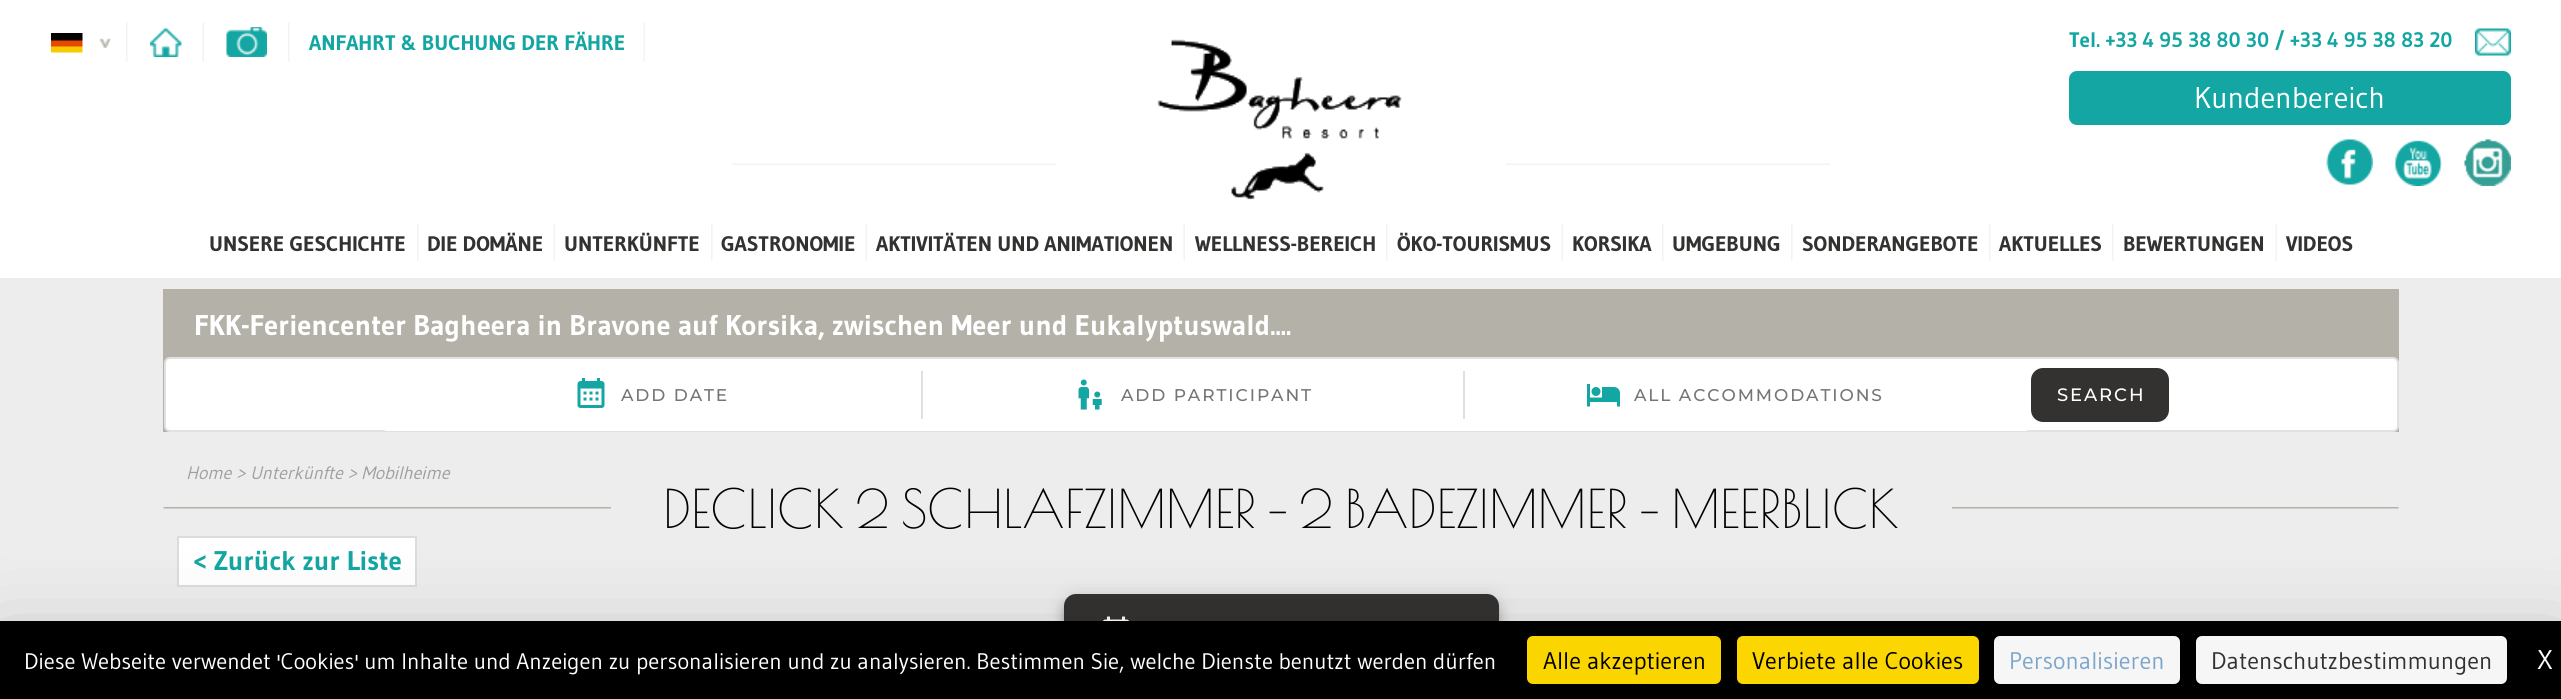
#include <cairo.h>
#include <math.h>
#include <stddef.h>


static void spaced_text(cairo_t *cr, double x, double y, const char *s, double letter, double word) {
    cairo_move_to(cr, x, y);
    while (*s) {
        char ch[5] = {0};
        int n = 0;
        do ch[n++] = *s++; while ((*s & 0xC0) == 0x80);
        cairo_show_text(cr, ch);
        cairo_rel_move_to(cr, letter + word * (*ch == ' '), 0);
    }
}

static void round_rect(cairo_t *cr, double x, double y, double w, double h, double r) {
    cairo_new_sub_path(cr);
    cairo_arc(cr, x + w - r, y + h - r, r, 0, M_PI / 2);
    cairo_arc(cr, x + r, y + h - r, r, M_PI / 2, M_PI);
    cairo_arc(cr, x + r, y + r, r, M_PI, 1.5 * M_PI);
    cairo_arc(cr, x + w - r, y + r, r, 1.5 * M_PI, 2 * M_PI);
    cairo_close_path(cr);
}

static void shadow(cairo_t *cr, double x, double y, double w, double h, double r, double blur, double alpha) {
    cairo_push_group_with_content(cr, CAIRO_CONTENT_ALPHA);
    cairo_set_operator(cr, CAIRO_OPERATOR_SOURCE);
    for (int i = 15; i >= -15 && fmin(w, h) + blur * i / 3 > 0; i -= 2) {
        double e = blur * i / 6;
        cairo_set_source_rgba(cr, 0, 0, 0, alpha * erfc((i - 1) / 8.5) / 2);
        round_rect(cr, x - e, y - e, w + 2 * e, h + 2 * e, fmax(0, fmin(r + e + blur * .6, fmin(w, h) / 2 + e)));
        cairo_fill(cr);
    }
    cairo_pattern_t *soft = cairo_pop_group(cr);
    cairo_mask(cr, soft);
    cairo_pattern_destroy(soft);
}

static void picture(cairo_t *cr, const char *path, double x, double y, double w, double h) {
    cairo_surface_t *image = cairo_image_surface_create_from_png(path);
    cairo_save(cr);
    cairo_set_source_surface(cr, image, x, y);
    cairo_rectangle(cr, x, y, w, h);
    cairo_fill(cr);
    cairo_restore(cr);
    cairo_surface_destroy(image);
}

int main(void) {
    cairo_surface_t *surface = cairo_image_surface_create(CAIRO_FORMAT_RGB24, 2561, 699);
    cairo_t *cr = cairo_create(surface);
    cairo_font_options_t *options = cairo_font_options_create();
    cairo_font_options_set_hint_metrics(options, CAIRO_HINT_METRICS_OFF);
    cairo_font_options_set_hint_style(options, CAIRO_HINT_STYLE_NONE);
    cairo_set_font_options(cr, options);
    cairo_set_miter_limit(cr, 4);
    cairo_set_source_rgb(cr, 1, 1, 1);
    cairo_paint(cr);
    picture(cr, "img1.png", 126, 22, 2, 40);
    picture(cr, "img2.png", 99, 38, 12, 10);
    picture(cr, "img3.png", 51, 33, 32, 20);
    picture(cr, "img4.png", 202, 22, 2, 40);
    picture(cr, "img5.png", 150, 28, 32, 29);
    picture(cr, "img1.png", 288, 22, 2, 40);
    picture(cr, "img6.png", 226, 27, 41, 30);
    picture(cr, "img4.png", 643, 22, 2, 40);
    cairo_select_font_face(cr, "Gudea", CAIRO_FONT_SLANT_NORMAL, CAIRO_FONT_WEIGHT_BOLD);
    cairo_set_font_size(cr, 21);
    cairo_set_source_rgb(cr, 0.075, 0.651, 0.635);
    cairo_move_to(cr, 309, 50);
    cairo_show_text(cr, "ANFAHRT & BUCHUNG DER FÄHRE");
    cairo_move_to(cr, 2069, 47);
    cairo_show_text(cr, "Tel. +33 4 95 38 80 30 / +33 4 95 38 83 20");
    picture(cr, "img7.png", 2475, 28, 36, 28);
    round_rect(cr, 2069, 71, 442, 54, 8);
    cairo_fill(cr);
    cairo_select_font_face(cr, "Gudea", CAIRO_FONT_SLANT_NORMAL, CAIRO_FONT_WEIGHT_NORMAL);
    cairo_set_font_size(cr, 30);
    cairo_set_source_rgb(cr, 1, 1, 1);
    cairo_move_to(cr, 2194, 108);
    cairo_show_text(cr, "Kundenbereich");
    picture(cr, "img8.png", 2326, 139, 47, 47);
    picture(cr, "img9.png", 2395, 140, 47, 46);
    picture(cr, "img10.png", 2464, 139, 47, 47);
    picture(cr, "img11.png", 732, 163, 1098, 2);
    cairo_rectangle(cr, 1056, 163, 450, 2);
    cairo_fill(cr);
    picture(cr, "img12.png", 1157, 39, 245, 161);
    cairo_select_font_face(cr, "Gudea", CAIRO_FONT_SLANT_NORMAL, CAIRO_FONT_WEIGHT_BOLD);
    cairo_set_font_size(cr, 21);
    cairo_set_source_rgb(cr, 0.2, 0.196, 0.188);
    cairo_move_to(cr, 209, 251);
    cairo_show_text(cr, "UNSERE GESCHICHTE");
    picture(cr, "img13.png", 417, 223, 2, 38);
    cairo_move_to(cr, 427, 251);
    cairo_show_text(cr, "DIE DOMÄNE");
    picture(cr, "img14.png", 553, 223, 2, 38);
    cairo_move_to(cr, 564, 251);
    cairo_show_text(cr, "UNTERKÜNFTE");
    picture(cr, "img13.png", 711, 223, 2, 38);
    cairo_move_to(cr, 721, 251);
    cairo_show_text(cr, "GASTRONOMIE");
    picture(cr, "img14.png", 865, 223, 2, 38);
    cairo_move_to(cr, 876, 251);
    cairo_show_text(cr, "AKTIVITÄTEN UND ANIMATIONEN");
    picture(cr, "img14.png", 1183, 223, 2, 38);
    cairo_move_to(cr, 1195, 251);
    cairo_show_text(cr, "WELLNESS-BEREICH");
    picture(cr, "img13.png", 1386, 223, 2, 38);
    cairo_move_to(cr, 1397, 251);
    cairo_show_text(cr, "ÖKO-TOURISMUS");
    picture(cr, "img14.png", 1561, 223, 2, 38);
    cairo_move_to(cr, 1572, 251);
    cairo_show_text(cr, "KORSIKA");
    picture(cr, "img13.png", 1662, 223, 2, 38);
    cairo_move_to(cr, 1672, 251);
    cairo_show_text(cr, "UMGEBUNG");
    picture(cr, "img13.png", 1791, 223, 2, 38);
    cairo_move_to(cr, 1802, 251);
    cairo_show_text(cr, "SONDERANGEBOTE");
    picture(cr, "img13.png", 1989, 223, 2, 38);
    cairo_move_to(cr, 1999, 251);
    cairo_show_text(cr, "AKTUELLES");
    picture(cr, "img13.png", 2112, 223, 2, 38);
    cairo_move_to(cr, 2123, 251);
    cairo_show_text(cr, "BEWERTUNGEN");
    picture(cr, "img14.png", 2275, 223, 2, 38);
    cairo_move_to(cr, 2286, 251);
    cairo_show_text(cr, "VIDEOS");
    cairo_set_source_rgb(cr, 0.929, 0.929, 0.929);
    cairo_rectangle(cr, 0, 278, 2561, 343);
    cairo_fill(cr);
    cairo_set_source_rgb(cr, 0.706, 0.694, 0.659);
    cairo_rectangle(cr, 163, 289, 2236, 143);
    cairo_fill(cr);
    cairo_set_font_size(cr, 28.5);
    cairo_set_source_rgb(cr, 1, 1, 1);
    cairo_move_to(cr, 194, 335);
    cairo_show_text(cr, "FKK-Feriencenter Bagheera in Bravone auf Korsika, zwischen Meer und Eukalyptuswald....");
    round_rect(cr, 164, 357, 2235, 75, 6);
    cairo_fill(cr);
    round_rect(cr, 165, 358, 2233, 73, 5);
    cairo_set_source_rgba(cr, 0, 0, 0, 0.12);
    cairo_stroke(cr);
    cairo_set_source_rgb(cr, 1, 1, 1);
    round_rect(cr, 381, 359, 1650, 72, 6);
    cairo_fill(cr);
    picture(cr, "img15.png", 577, 378, 28, 30);
    cairo_select_font_face(cr, "Montserrat Medium", CAIRO_FONT_SLANT_NORMAL, CAIRO_FONT_WEIGHT_NORMAL);
    cairo_set_font_size(cr, 17);
    cairo_set_source_rgb(cr, 0.459, 0.459, 0.459);
    spaced_text(cr, 621, 401, "ADD DATE", 1.9, 0);
    cairo_set_source_rgb(cr, 0.878, 0.878, 0.878);
    cairo_rectangle(cr, 921, 371, 2, 48);
    cairo_fill(cr);
    picture(cr, "img16.png", 1078, 379, 24, 31);
    cairo_set_source_rgb(cr, 0.459, 0.459, 0.459);
    spaced_text(cr, 1121, 401, "ADD PARTICIPANT", 1.9, 0);
    cairo_set_source_rgb(cr, 0.878, 0.878, 0.878);
    cairo_rectangle(cr, 1463, 371, 2, 48);
    cairo_fill(cr);
    picture(cr, "img17.png", 1587, 384, 33, 23);
    cairo_set_source_rgb(cr, 0.459, 0.459, 0.459);
    spaced_text(cr, 1634, 401, "ALL ACCOMMODATIONS", 1.9, 0);
    cairo_set_source_rgb(cr, 0.2, 0.196, 0.188);
    round_rect(cr, 2031, 368, 138, 54, 12);
    cairo_fill(cr);
    cairo_set_font_size(cr, 18);
    cairo_set_source_rgb(cr, 1, 1, 1);
    spaced_text(cr, 2057, 401, "SEARCH", 1.9, 0);
    cairo_select_font_face(cr, "Gudea", CAIRO_FONT_SLANT_ITALIC, CAIRO_FONT_WEIGHT_NORMAL);
    cairo_set_source_rgb(cr, 0.624, 0.624, 0.616);
    cairo_move_to(cr, 186, 479);
    cairo_show_text(cr, "Home > Unterkünfte > Mobilheime");
    picture(cr, "img18.png", 163, 507, 2236, 2);
    cairo_set_source_rgb(cr, 0.929, 0.929, 0.929);
    cairo_rectangle(cr, 611, 507, 1341, 2);
    cairo_fill(cr);
    cairo_select_font_face(cr, "Poiret One", CAIRO_FONT_SLANT_NORMAL, CAIRO_FONT_WEIGHT_NORMAL);
    cairo_set_font_size(cr, 52.5);
    cairo_set_source_rgb(cr, 0, 0, 0);
    cairo_move_to(cr, 663, 528);
    cairo_show_text(cr, "DECLICK 2 SCHLAFZIMMER - 2 BADEZIMMER - MEERBLICK");
    cairo_set_source_rgb(cr, 1, 1, 1);
    cairo_rectangle(cr, 178, 537, 238, 49);
    cairo_fill_preserve(cr);
    cairo_set_source_rgb(cr, 0.863, 0.863, 0.863);
    cairo_stroke(cr);
    cairo_select_font_face(cr, "Gudea", CAIRO_FONT_SLANT_NORMAL, CAIRO_FONT_WEIGHT_BOLD);
    cairo_set_font_size(cr, 27);
    cairo_set_source_rgb(cr, 0.075, 0.651, 0.635);
    cairo_move_to(cr, 193, 570);
    cairo_show_text(cr, "< Zurück zur Liste");
    cairo_set_source_rgb(cr, 0, 0, 0);
    shadow(cr, 1064, 596, 435, 78, 12, 10.5, 0.12);
    shadow(cr, 1064, 602, 435, 78, 12, 6, 0.14);
    shadow(cr, 1065, 600, 432, 75, 11, 4, 0.2);
    cairo_set_source_rgb(cr, 0.2, 0.196, 0.188);
    round_rect(cr, 1064, 594, 435, 78, 12);
    cairo_fill(cr);
    picture(cr, "img19.png", 1103, 616, 26, 5);
    cairo_set_source_rgb(cr, 0, 0, 0);
    shadow(cr, 0, 651, 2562, 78, 0, 45, 0.25);
    cairo_set_source_rgb(cr, 0, 0, 0);
    cairo_rectangle(cr, 0, 621, 2561, 78);
    cairo_fill(cr);
    cairo_select_font_face(cr, "Gudea", CAIRO_FONT_SLANT_NORMAL, CAIRO_FONT_WEIGHT_NORMAL);
    cairo_set_font_size(cr, 22.5);
    cairo_set_source_rgb(cr, 1, 1, 1);
    cairo_move_to(cr, 24, 669);
    cairo_show_text(cr, "Diese Webseite verwendet 'Cookies' um Inhalte und Anzeigen zu personalisieren und zu analysieren. Bestimmen Sie, welche Dienste benutzt werden dürfen");
    cairo_set_source_rgb(cr, 0.984, 0.835, 0);
    round_rect(cr, 1527, 636, 194, 48, 6);
    cairo_fill(cr);
    cairo_set_font_size(cr, 24);
    cairo_set_source_rgb(cr, 0, 0, 0);
    cairo_move_to(cr, 1543, 669);
    cairo_show_text(cr, "Alle akzeptieren");
    cairo_set_source_rgb(cr, 0.984, 0.839, 0);
    round_rect(cr, 1737, 636, 242, 48, 6);
    cairo_fill(cr);
    cairo_set_source_rgb(cr, 0, 0, 0);
    cairo_move_to(cr, 1752, 669);
    cairo_show_text(cr, "Verbiete alle Cookies");
    cairo_set_source_rgb(cr, 0.961, 0.961, 0.961);
    round_rect(cr, 1994, 636, 186, 48, 6);
    cairo_fill(cr);
    cairo_set_source_rgb(cr, 0.49, 0.651, 0.8);
    cairo_move_to(cr, 2009, 669);
    cairo_show_text(cr, "Personalisieren");
    cairo_set_source_rgb(cr, 0.961, 0.961, 0.961);
    round_rect(cr, 2196, 636, 311, 48, 6);
    cairo_fill(cr);
    cairo_set_source_rgb(cr, 0.2, 0.196, 0.188);
    cairo_move_to(cr, 2211, 669);
    cairo_show_text(cr, "Datenschutzbestimmungen");
    cairo_set_font_size(cr, 27);
    cairo_set_source_rgb(cr, 1, 1, 1);
    cairo_move_to(cr, 2537, 669);
    cairo_show_text(cr, "X");
    cairo_surface_write_to_png(surface, "page.png");
    cairo_font_options_destroy(options);
    cairo_destroy(cr);
    cairo_surface_destroy(surface);
    return 0;
}
